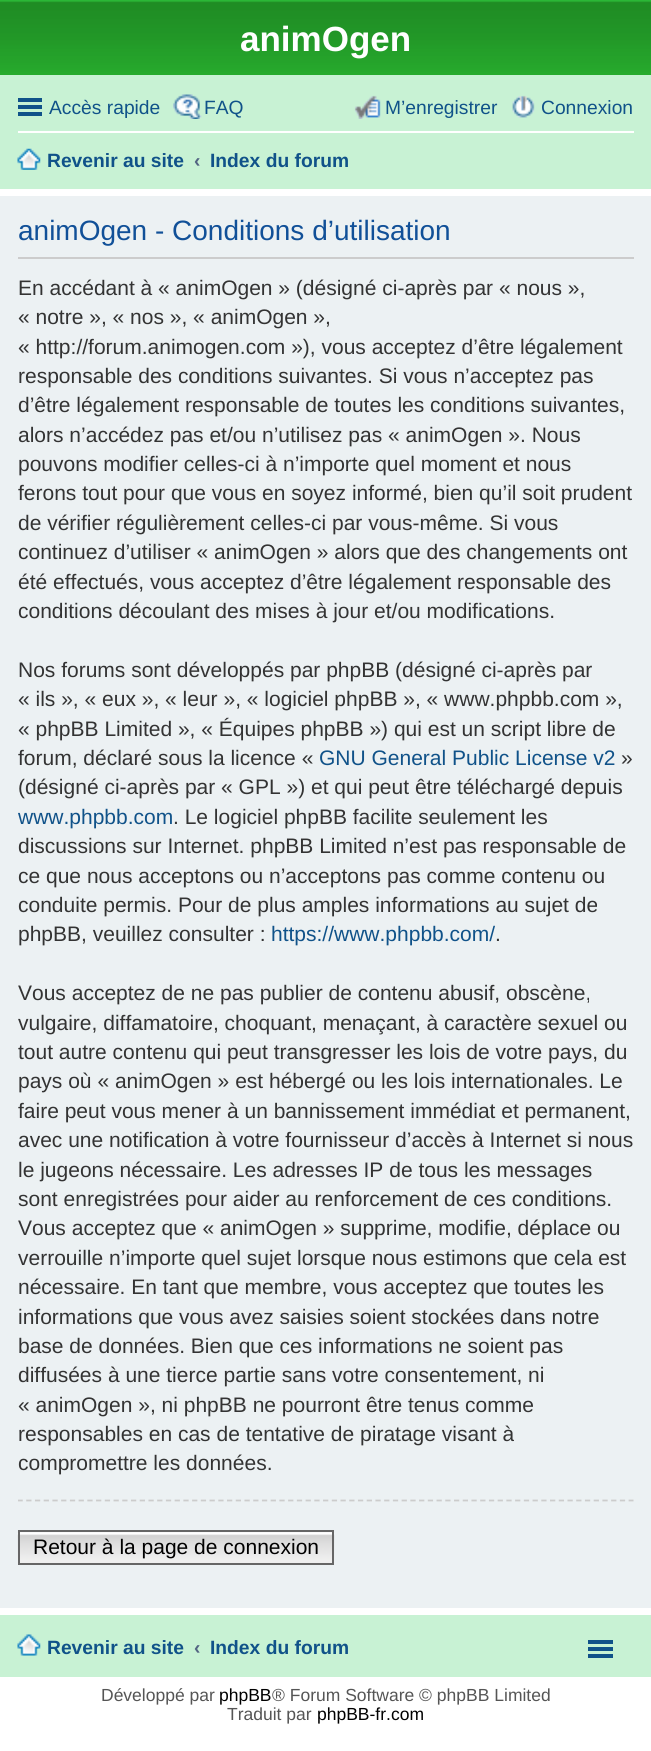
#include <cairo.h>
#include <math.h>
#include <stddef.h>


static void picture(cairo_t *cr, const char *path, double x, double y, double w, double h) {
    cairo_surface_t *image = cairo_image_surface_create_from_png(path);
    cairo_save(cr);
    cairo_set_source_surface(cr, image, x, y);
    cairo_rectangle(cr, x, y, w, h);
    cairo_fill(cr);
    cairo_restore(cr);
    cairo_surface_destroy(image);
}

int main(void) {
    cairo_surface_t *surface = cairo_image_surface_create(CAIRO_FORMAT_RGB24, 651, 1751);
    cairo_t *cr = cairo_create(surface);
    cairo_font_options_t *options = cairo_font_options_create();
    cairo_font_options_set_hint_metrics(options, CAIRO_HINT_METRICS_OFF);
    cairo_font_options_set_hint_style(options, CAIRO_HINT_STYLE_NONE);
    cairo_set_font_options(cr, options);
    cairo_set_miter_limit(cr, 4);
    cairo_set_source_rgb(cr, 1, 1, 1);
    cairo_paint(cr);
    picture(cr, "img1.png", 0, 0, 651, 75);
    cairo_select_font_face(cr, "Liberation Sans", CAIRO_FONT_SLANT_NORMAL, CAIRO_FONT_WEIGHT_BOLD);
    cairo_set_font_size(cr, 35);
    cairo_set_source_rgb(cr, 1, 1, 1);
    cairo_move_to(cr, 240, 51);
    cairo_show_text(cr, "animOgen");
    cairo_set_source_rgb(cr, 0.784, 0.949, 0.831);
    cairo_rectangle(cr, 0, 75, 651, 114);
    cairo_fill(cr);
    cairo_set_source_rgb(cr, 0.063, 0.322, 0.537);
    cairo_rectangle(cr, 18, 98, 24, 4);
    cairo_fill(cr);
    cairo_rectangle(cr, 18, 105, 24, 4);
    cairo_fill(cr);
    cairo_rectangle(cr, 18, 112, 24, 4);
    cairo_fill(cr);
    cairo_select_font_face(cr, "Liberation Sans", CAIRO_FONT_SLANT_NORMAL, CAIRO_FONT_WEIGHT_NORMAL);
    cairo_set_font_size(cr, 19.25);
    cairo_move_to(cr, 49, 114);
    cairo_show_text(cr, "Accès rapide");
    picture(cr, "img2.png", 173, 94, 29, 25);
    cairo_move_to(cr, 204, 114);
    cairo_show_text(cr, "FAQ");
    picture(cr, "img3.png", 354, 95, 27, 24);
    cairo_move_to(cr, 385, 114);
    cairo_show_text(cr, "M’enregistrer");
    picture(cr, "img4.png", 512, 95, 23, 23);
    cairo_move_to(cr, 541, 114);
    cairo_show_text(cr, "Connexion");
    cairo_set_source_rgb(cr, 1, 1, 1);
    cairo_rectangle(cr, 18, 131, 616, 2);
    cairo_fill(cr);
    picture(cr, "img5.png", 17, 148, 24, 22);
    cairo_select_font_face(cr, "Liberation Sans", CAIRO_FONT_SLANT_NORMAL, CAIRO_FONT_WEIGHT_BOLD);
    cairo_set_source_rgb(cr, 0.063, 0.322, 0.537);
    cairo_move_to(cr, 47, 167);
    cairo_show_text(cr, "Revenir au site");
    cairo_set_source_rgb(cr, 0.325, 0.392, 0.51);
    cairo_move_to(cr, 194, 167);
    cairo_show_text(cr, "‹");
    cairo_set_source_rgb(cr, 0.063, 0.322, 0.537);
    cairo_move_to(cr, 210, 167);
    cairo_show_text(cr, "Index du forum");
    cairo_set_source_rgb(cr, 0.925, 0.945, 0.953);
    cairo_rectangle(cr, 0, 196, 651, 1412);
    cairo_fill(cr);
    cairo_set_source_rgb(cr, 0.8, 0.8, 0.8);
    cairo_rectangle(cr, 18, 257, 616, 2);
    cairo_fill(cr);
    cairo_select_font_face(cr, "Liberation Sans", CAIRO_FONT_SLANT_NORMAL, CAIRO_FONT_WEIGHT_NORMAL);
    cairo_set_font_size(cr, 28);
    cairo_set_source_rgb(cr, 0.067, 0.314, 0.596);
    cairo_move_to(cr, 18, 240);
    cairo_show_text(cr, "animOgen - Conditions d’utilisation");
    cairo_set_font_size(cr, 21);
    cairo_set_source_rgb(cr, 0.2, 0.2, 0.2);
    cairo_move_to(cr, 18, 295);
    cairo_show_text(cr, "En accédant à « animOgen » (désigné ci-après par « nous »,");
    cairo_move_to(cr, 18, 324);
    cairo_show_text(cr, "« notre », « nos », « animOgen »,");
    cairo_move_to(cr, 18, 354);
    cairo_show_text(cr, "« http://forum.animogen.com »), vous acceptez d’être légalement");
    cairo_move_to(cr, 18, 383);
    cairo_show_text(cr, "responsable des conditions suivantes. Si vous n’acceptez pas");
    cairo_move_to(cr, 18, 412);
    cairo_show_text(cr, "d’être légalement responsable de toutes les conditions suivantes,");
    cairo_move_to(cr, 18, 442);
    cairo_show_text(cr, "alors n’accédez pas et/ou n’utilisez pas « animOgen ». Nous");
    cairo_move_to(cr, 18, 471);
    cairo_show_text(cr, "pouvons modifier celles-ci à n’importe quel moment et nous");
    cairo_move_to(cr, 18, 500);
    cairo_show_text(cr, "ferons tout pour que vous en soyez informé, bien qu’il soit prudent");
    cairo_move_to(cr, 18, 530);
    cairo_show_text(cr, "de vérifier régulièrement celles-ci par vous-même. Si vous");
    cairo_move_to(cr, 18, 559);
    cairo_show_text(cr, "continuez d’utiliser « animOgen » alors que des changements ont");
    cairo_move_to(cr, 18, 589);
    cairo_show_text(cr, "été effectués, vous acceptez d’être légalement responsable des");
    cairo_move_to(cr, 18, 618);
    cairo_show_text(cr, "conditions découlant des mises à jour et/ou modifications.");
    cairo_move_to(cr, 18, 677);
    cairo_show_text(cr, "Nos forums sont développés par phpBB (désigné ci-après par");
    cairo_move_to(cr, 18, 706);
    cairo_show_text(cr, "« ils », « eux », « leur », « logiciel phpBB », « www.phpbb.com »,");
    cairo_move_to(cr, 18, 736);
    cairo_show_text(cr, "« phpBB Limited », « Équipes phpBB ») qui est un script libre de");
    cairo_move_to(cr, 18, 765);
    cairo_show_text(cr, "forum, déclaré sous la licence «");
    cairo_set_source_rgb(cr, 0.063, 0.322, 0.537);
    cairo_move_to(cr, 319, 765);
    cairo_show_text(cr, "GNU General Public License v2");
    cairo_set_source_rgb(cr, 0.2, 0.2, 0.2);
    cairo_move_to(cr, 621, 765);
    cairo_show_text(cr, "»");
    cairo_move_to(cr, 18, 794);
    cairo_show_text(cr, "(désigné ci-après par « GPL ») et qui peut être téléchargé depuis");
    cairo_set_source_rgb(cr, 0.063, 0.322, 0.537);
    cairo_move_to(cr, 18, 824);
    cairo_show_text(cr, "www.phpbb.com");
    cairo_set_source_rgb(cr, 0.2, 0.2, 0.2);
    cairo_move_to(cr, 173, 824);
    cairo_show_text(cr, ". Le logiciel phpBB facilite seulement les");
    cairo_move_to(cr, 18, 853);
    cairo_show_text(cr, "discussions sur Internet. phpBB Limited n’est pas responsable de");
    cairo_move_to(cr, 18, 883);
    cairo_show_text(cr, "ce que nous acceptons ou n’acceptons pas comme contenu ou");
    cairo_move_to(cr, 18, 912);
    cairo_show_text(cr, "conduite permis. Pour de plus amples informations au sujet de");
    cairo_move_to(cr, 18, 941);
    cairo_show_text(cr, "phpBB, veuillez consulter :");
    cairo_set_source_rgb(cr, 0.063, 0.322, 0.537);
    cairo_move_to(cr, 271, 941);
    cairo_show_text(cr, "https://www.phpbb.com/");
    cairo_set_source_rgb(cr, 0.2, 0.2, 0.2);
    cairo_move_to(cr, 495, 941);
    cairo_show_text(cr, ".");
    cairo_move_to(cr, 18, 1000);
    cairo_show_text(cr, "Vous acceptez de ne pas publier de contenu abusif, obscène,");
    cairo_move_to(cr, 18, 1030);
    cairo_show_text(cr, "vulgaire, diffamatoire, choquant, menaçant, à caractère sexuel ou");
    cairo_move_to(cr, 18, 1059);
    cairo_show_text(cr, "tout autre contenu qui peut transgresser les lois de votre pays, du");
    cairo_move_to(cr, 18, 1088);
    cairo_show_text(cr, "pays où « animOgen » est hébergé ou les lois internationales. Le");
    cairo_move_to(cr, 18, 1118);
    cairo_show_text(cr, "faire peut vous mener à un bannissement immédiat et permanent,");
    cairo_move_to(cr, 18, 1147);
    cairo_show_text(cr, "avec une notification à votre fournisseur d’accès à Internet si nous");
    cairo_move_to(cr, 18, 1177);
    cairo_show_text(cr, "le jugeons nécessaire. Les adresses IP de tous les messages");
    cairo_move_to(cr, 18, 1206);
    cairo_show_text(cr, "sont enregistrées pour aider au renforcement de ces conditions.");
    cairo_move_to(cr, 18, 1235);
    cairo_show_text(cr, "Vous acceptez que « animOgen » supprime, modifie, déplace ou");
    cairo_move_to(cr, 18, 1265);
    cairo_show_text(cr, "verrouille n’importe quel sujet lorsque nous estimons que cela est");
    cairo_move_to(cr, 18, 1294);
    cairo_show_text(cr, "nécessaire. En tant que membre, vous acceptez que toutes les");
    cairo_move_to(cr, 18, 1324);
    cairo_show_text(cr, "informations que vous avez saisies soient stockées dans notre");
    cairo_move_to(cr, 18, 1353);
    cairo_show_text(cr, "base de données. Bien que ces informations ne soient pas");
    cairo_move_to(cr, 18, 1382);
    cairo_show_text(cr, "diffusées à une tierce partie sans votre consentement, ni");
    cairo_move_to(cr, 18, 1412);
    cairo_show_text(cr, "« animOgen », ni phpBB ne pourront être tenus comme");
    cairo_move_to(cr, 18, 1441);
    cairo_show_text(cr, "responsables en cas de tentative de piratage visant à");
    cairo_move_to(cr, 18, 1470);
    cairo_show_text(cr, "compromettre les données.");
    cairo_save(cr);
    cairo_rectangle(cr, 18, 205, 616, 1395);
    cairo_clip(cr);
    cairo_new_path(cr);
    cairo_move_to(cr, 17.5, 1500.5);
    cairo_line_to(cr, 633.5, 1500.5);
    cairo_set_source_rgb(cr, 0.8, 0.8, 0.8);
    cairo_set_line_width(cr, 1.8);
    cairo_set_dash(cr, (double[]){5.25, 3.48}, 2, 0);
    cairo_stroke(cr);
    cairo_restore(cr);
    picture(cr, "img6.png", 17, 1533, 318, 32);
    cairo_set_source_rgb(cr, 0.98, 0.98, 0.98);
    cairo_rectangle(cr, 20, 1532, 312, 1);
    cairo_fill(cr);
    cairo_rectangle(cr, 19, 1531, 314, 33);
    cairo_set_source_rgb(cr, 0.4, 0.4, 0.4);
    cairo_stroke(cr);
    cairo_set_source_rgb(cr, 0, 0, 0);
    cairo_move_to(cr, 33, 1554);
    cairo_show_text(cr, "Retour à la page de connexion");
    cairo_set_source_rgb(cr, 0.784, 0.949, 0.831);
    cairo_rectangle(cr, 0, 1615, 651, 62);
    cairo_fill(cr);
    picture(cr, "img7.png", 17, 1634, 24, 22);
    cairo_select_font_face(cr, "Liberation Sans", CAIRO_FONT_SLANT_NORMAL, CAIRO_FONT_WEIGHT_BOLD);
    cairo_set_font_size(cr, 19.25);
    cairo_set_source_rgb(cr, 0.063, 0.322, 0.537);
    cairo_move_to(cr, 47, 1654);
    cairo_show_text(cr, "Revenir au site");
    cairo_set_source_rgb(cr, 0.325, 0.392, 0.51);
    cairo_move_to(cr, 194, 1654);
    cairo_show_text(cr, "‹");
    cairo_set_source_rgb(cr, 0.063, 0.322, 0.537);
    cairo_move_to(cr, 210, 1654);
    cairo_show_text(cr, "Index du forum");
    cairo_rectangle(cr, 588, 1640, 25, 4);
    cairo_fill(cr);
    cairo_rectangle(cr, 588, 1647, 25, 4);
    cairo_fill(cr);
    cairo_rectangle(cr, 588, 1654, 25, 4);
    cairo_fill(cr);
    cairo_select_font_face(cr, "Liberation Sans", CAIRO_FONT_SLANT_NORMAL, CAIRO_FONT_WEIGHT_NORMAL);
    cairo_set_font_size(cr, 17.5);
    cairo_set_source_rgb(cr, 0.333, 0.333, 0.333);
    cairo_move_to(cr, 101, 1701);
    cairo_show_text(cr, "Développé par");
    cairo_set_source_rgb(cr, 0, 0, 0);
    cairo_move_to(cr, 219, 1701);
    cairo_show_text(cr, "phpBB");
    cairo_set_source_rgb(cr, 0.333, 0.333, 0.333);
    cairo_move_to(cr, 272, 1701);
    cairo_show_text(cr, "® Forum Software © phpBB Limited");
    cairo_move_to(cr, 227, 1720);
    cairo_show_text(cr, "Traduit par");
    cairo_set_source_rgb(cr, 0, 0, 0);
    cairo_move_to(cr, 317, 1720);
    cairo_show_text(cr, "phpBB-fr.com");
    cairo_surface_write_to_png(surface, "page.png");
    cairo_font_options_destroy(options);
    cairo_destroy(cr);
    cairo_surface_destroy(surface);
    return 0;
}
